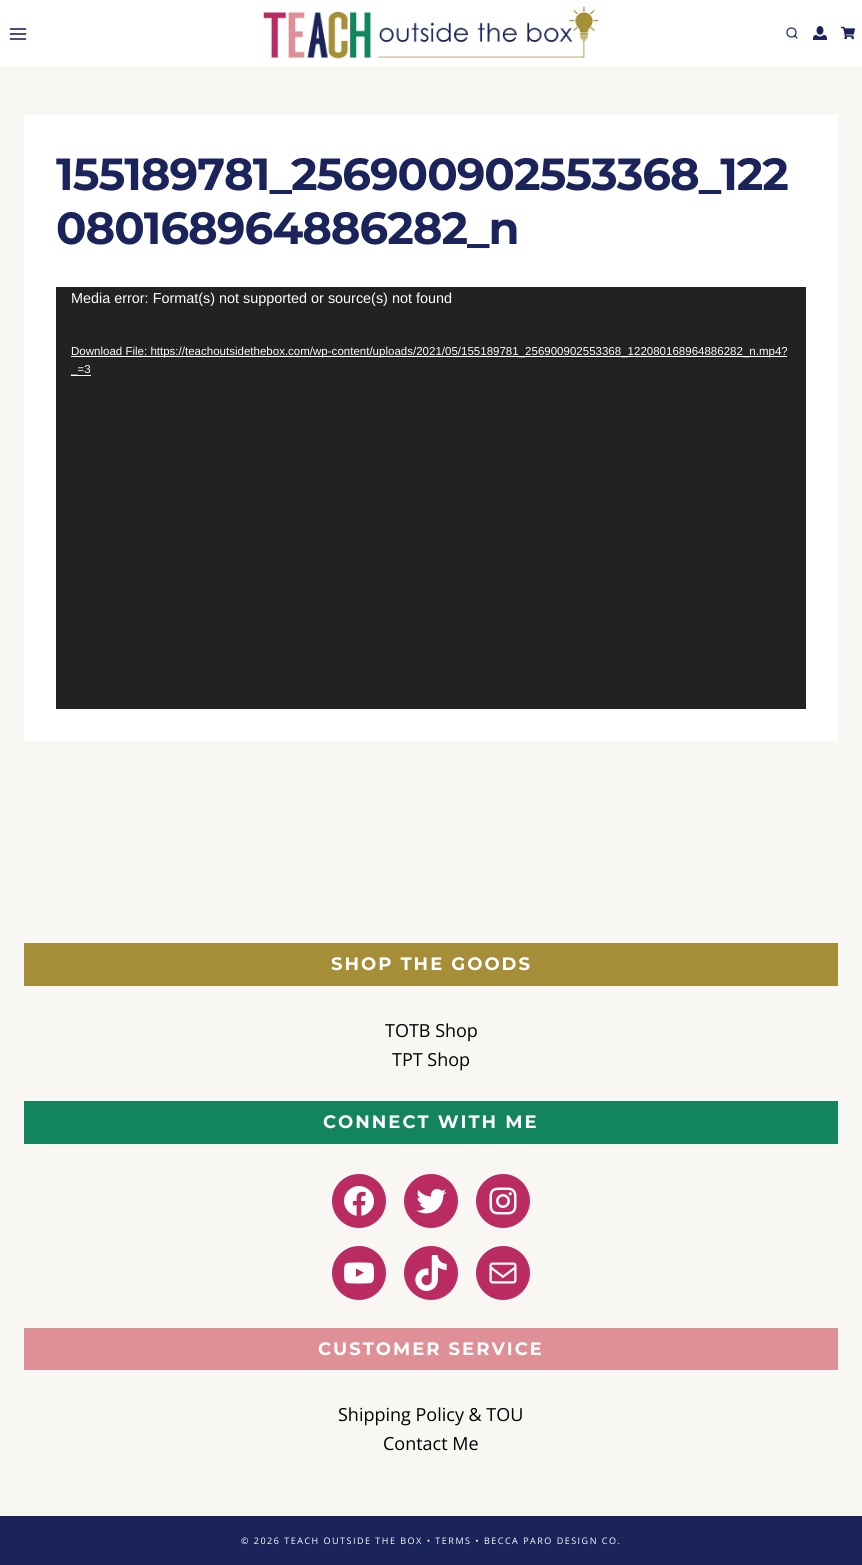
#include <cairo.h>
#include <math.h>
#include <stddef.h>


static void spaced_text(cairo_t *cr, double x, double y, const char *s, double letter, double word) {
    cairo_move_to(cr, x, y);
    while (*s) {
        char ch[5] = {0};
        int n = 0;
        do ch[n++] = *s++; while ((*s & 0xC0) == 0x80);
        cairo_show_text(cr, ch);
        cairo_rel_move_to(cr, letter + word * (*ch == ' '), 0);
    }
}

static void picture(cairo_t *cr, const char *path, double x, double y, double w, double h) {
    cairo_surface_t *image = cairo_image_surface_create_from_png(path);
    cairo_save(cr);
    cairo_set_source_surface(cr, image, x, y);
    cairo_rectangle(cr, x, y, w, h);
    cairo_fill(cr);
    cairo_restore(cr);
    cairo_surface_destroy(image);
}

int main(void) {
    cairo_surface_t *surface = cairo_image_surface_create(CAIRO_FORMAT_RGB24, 862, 1565);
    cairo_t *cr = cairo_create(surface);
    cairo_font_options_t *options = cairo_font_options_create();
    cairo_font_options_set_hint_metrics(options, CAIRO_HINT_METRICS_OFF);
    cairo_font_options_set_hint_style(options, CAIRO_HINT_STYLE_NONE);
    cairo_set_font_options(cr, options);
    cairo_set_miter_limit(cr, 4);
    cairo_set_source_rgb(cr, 0.969, 0.965, 0.953);
    cairo_paint(cr);
    cairo_set_source_rgb(cr, 1, 1, 1);
    cairo_rectangle(cr, 0, 0, 862, 67);
    cairo_fill(cr);
    picture(cr, "img1.png", 9, 28, 18, 12);
    picture(cr, "img2.png", 263, 6, 337, 53);
    cairo_arc(cr, 791.5, 32.5, 4.5, 0, 2 * M_PI);
    cairo_set_source_rgb(cr, 0.106, 0.141, 0.353);
    cairo_set_line_width(cr, 1.2);
    cairo_stroke(cr);
    cairo_new_path(cr);
    cairo_move_to(cr, 797, 38);
    cairo_line_to(cr, 794.5, 35.5);
    cairo_set_line_cap(cr, CAIRO_LINE_CAP_ROUND);
    cairo_set_line_join(cr, CAIRO_LINE_JOIN_ROUND);
    cairo_stroke(cr);
    picture(cr, "img3.png", 813, 26, 14, 14);
    picture(cr, "img4.png", 841, 26, 14, 14);
    cairo_set_source_rgb(cr, 1, 1, 1);
    cairo_rectangle(cr, 24, 115, 814, 626);
    cairo_fill(cr);
    cairo_select_font_face(cr, "Montserrat", CAIRO_FONT_SLANT_NORMAL, CAIRO_FONT_WEIGHT_BOLD);
    cairo_set_font_size(cr, 45);
    cairo_set_source_rgb(cr, 0.106, 0.141, 0.353);
    spaced_text(cr, 56, 190, "155189781_256900902553368_122", -1, 0);
    spaced_text(cr, 56, 244, "080168964886282_n", -1, 0);
    cairo_set_source_rgb(cr, 0.133, 0.133, 0.133);
    cairo_rectangle(cr, 56, 287, 750, 422);
    cairo_fill(cr);
    cairo_select_font_face(cr, "Liberation Sans", CAIRO_FONT_SLANT_NORMAL, CAIRO_FONT_WEIGHT_NORMAL);
    cairo_set_font_size(cr, 14.4);
    cairo_set_source_rgb(cr, 1, 1, 1);
    cairo_move_to(cr, 71, 303);
    cairo_show_text(cr, "Media error: Format(s) not supported or source(s) not found");
    cairo_rectangle(cr, 71, 356, 716, 1);
    cairo_fill(cr);
    cairo_set_font_size(cr, 11.52);
    cairo_move_to(cr, 71, 355);
    cairo_show_text(cr, "Download File: https://teachoutsidethebox.com/wp-content/uploads/2021/05/155189781_256900902553368_122080168964886282_n.mp4?");
    cairo_rectangle(cr, 71, 375, 20, 1);
    cairo_fill(cr);
    cairo_move_to(cr, 71, 373);
    cairo_show_text(cr, "_=3");
    cairo_set_source_rgb(cr, 0.647, 0.557, 0.216);
    cairo_rectangle(cr, 24, 943, 814, 43);
    cairo_fill(cr);
    cairo_select_font_face(cr, "Montserrat", CAIRO_FONT_SLANT_NORMAL, CAIRO_FONT_WEIGHT_BOLD);
    cairo_set_font_size(cr, 18);
    cairo_set_source_rgb(cr, 1, 1, 1);
    spaced_text(cr, 331, 970, "SHOP THE GOODS", 2, 0);
    cairo_select_font_face(cr, "Open Sans", CAIRO_FONT_SLANT_NORMAL, CAIRO_FONT_WEIGHT_NORMAL);
    cairo_set_source_rgb(cr, 0, 0, 0);
    cairo_move_to(cr, 385, 1037);
    cairo_show_text(cr, "TOTB Shop");
    cairo_move_to(cr, 392, 1066);
    cairo_show_text(cr, "TPT Shop");
    cairo_set_source_rgb(cr, 0.071, 0.522, 0.373);
    cairo_rectangle(cr, 24, 1101, 814, 43);
    cairo_fill(cr);
    cairo_select_font_face(cr, "Montserrat", CAIRO_FONT_SLANT_NORMAL, CAIRO_FONT_WEIGHT_BOLD);
    cairo_set_source_rgb(cr, 1, 1, 1);
    spaced_text(cr, 323, 1128, "CONNECT WITH ME", 2, 0);
    cairo_set_source_rgb(cr, 0.729, 0.169, 0.384);
    cairo_new_path(cr);
    cairo_arc(cr, 359, 1201, 27, 0, 2 * M_PI);
    cairo_fill(cr);
    picture(cr, "img5.png", 344, 1186, 30, 30);
    cairo_arc(cr, 431, 1201, 27, 0, 2 * M_PI);
    cairo_fill(cr);
    picture(cr, "img6.png", 416, 1189, 31, 25);
    cairo_arc(cr, 503, 1201, 27, 0, 2 * M_PI);
    cairo_fill(cr);
    picture(cr, "img7.png", 489, 1187, 28, 28);
    cairo_arc(cr, 359, 1273, 27, 0, 2 * M_PI);
    cairo_fill(cr);
    picture(cr, "img8.png", 344, 1262, 30, 22);
    cairo_arc(cr, 431, 1273, 27, 0, 2 * M_PI);
    cairo_fill(cr);
    picture(cr, "img9.png", 415, 1255, 32, 36);
    cairo_arc(cr, 503, 1273, 27, 0, 2 * M_PI);
    cairo_fill(cr);
    picture(cr, "img10.png", 489, 1262, 28, 22);
    cairo_set_source_rgb(cr, 0.871, 0.565, 0.588);
    cairo_rectangle(cr, 24, 1328, 814, 42);
    cairo_fill(cr);
    cairo_set_source_rgb(cr, 1, 1, 1);
    spaced_text(cr, 318, 1355, "CUSTOMER SERVICE", 2, 0);
    cairo_select_font_face(cr, "Open Sans", CAIRO_FONT_SLANT_NORMAL, CAIRO_FONT_WEIGHT_NORMAL);
    cairo_set_source_rgb(cr, 0, 0, 0);
    cairo_move_to(cr, 338, 1421);
    cairo_show_text(cr, "Shipping Policy & TOU");
    cairo_move_to(cr, 383, 1450);
    cairo_show_text(cr, "Contact Me");
    cairo_set_source_rgb(cr, 0.106, 0.141, 0.353);
    cairo_rectangle(cr, 0, 1516, 862, 49);
    cairo_fill(cr);
    cairo_set_font_size(cr, 9);
    cairo_set_source_rgb(cr, 1, 1, 1);
    spaced_text(cr, 241, 1544, "© 2026 TEACH OUTSIDE THE BOX • TERMS • BECCA PARO DESIGN CO.", 1.5, 0);
    cairo_surface_write_to_png(surface, "page.png");
    cairo_font_options_destroy(options);
    cairo_destroy(cr);
    cairo_surface_destroy(surface);
    return 0;
}
